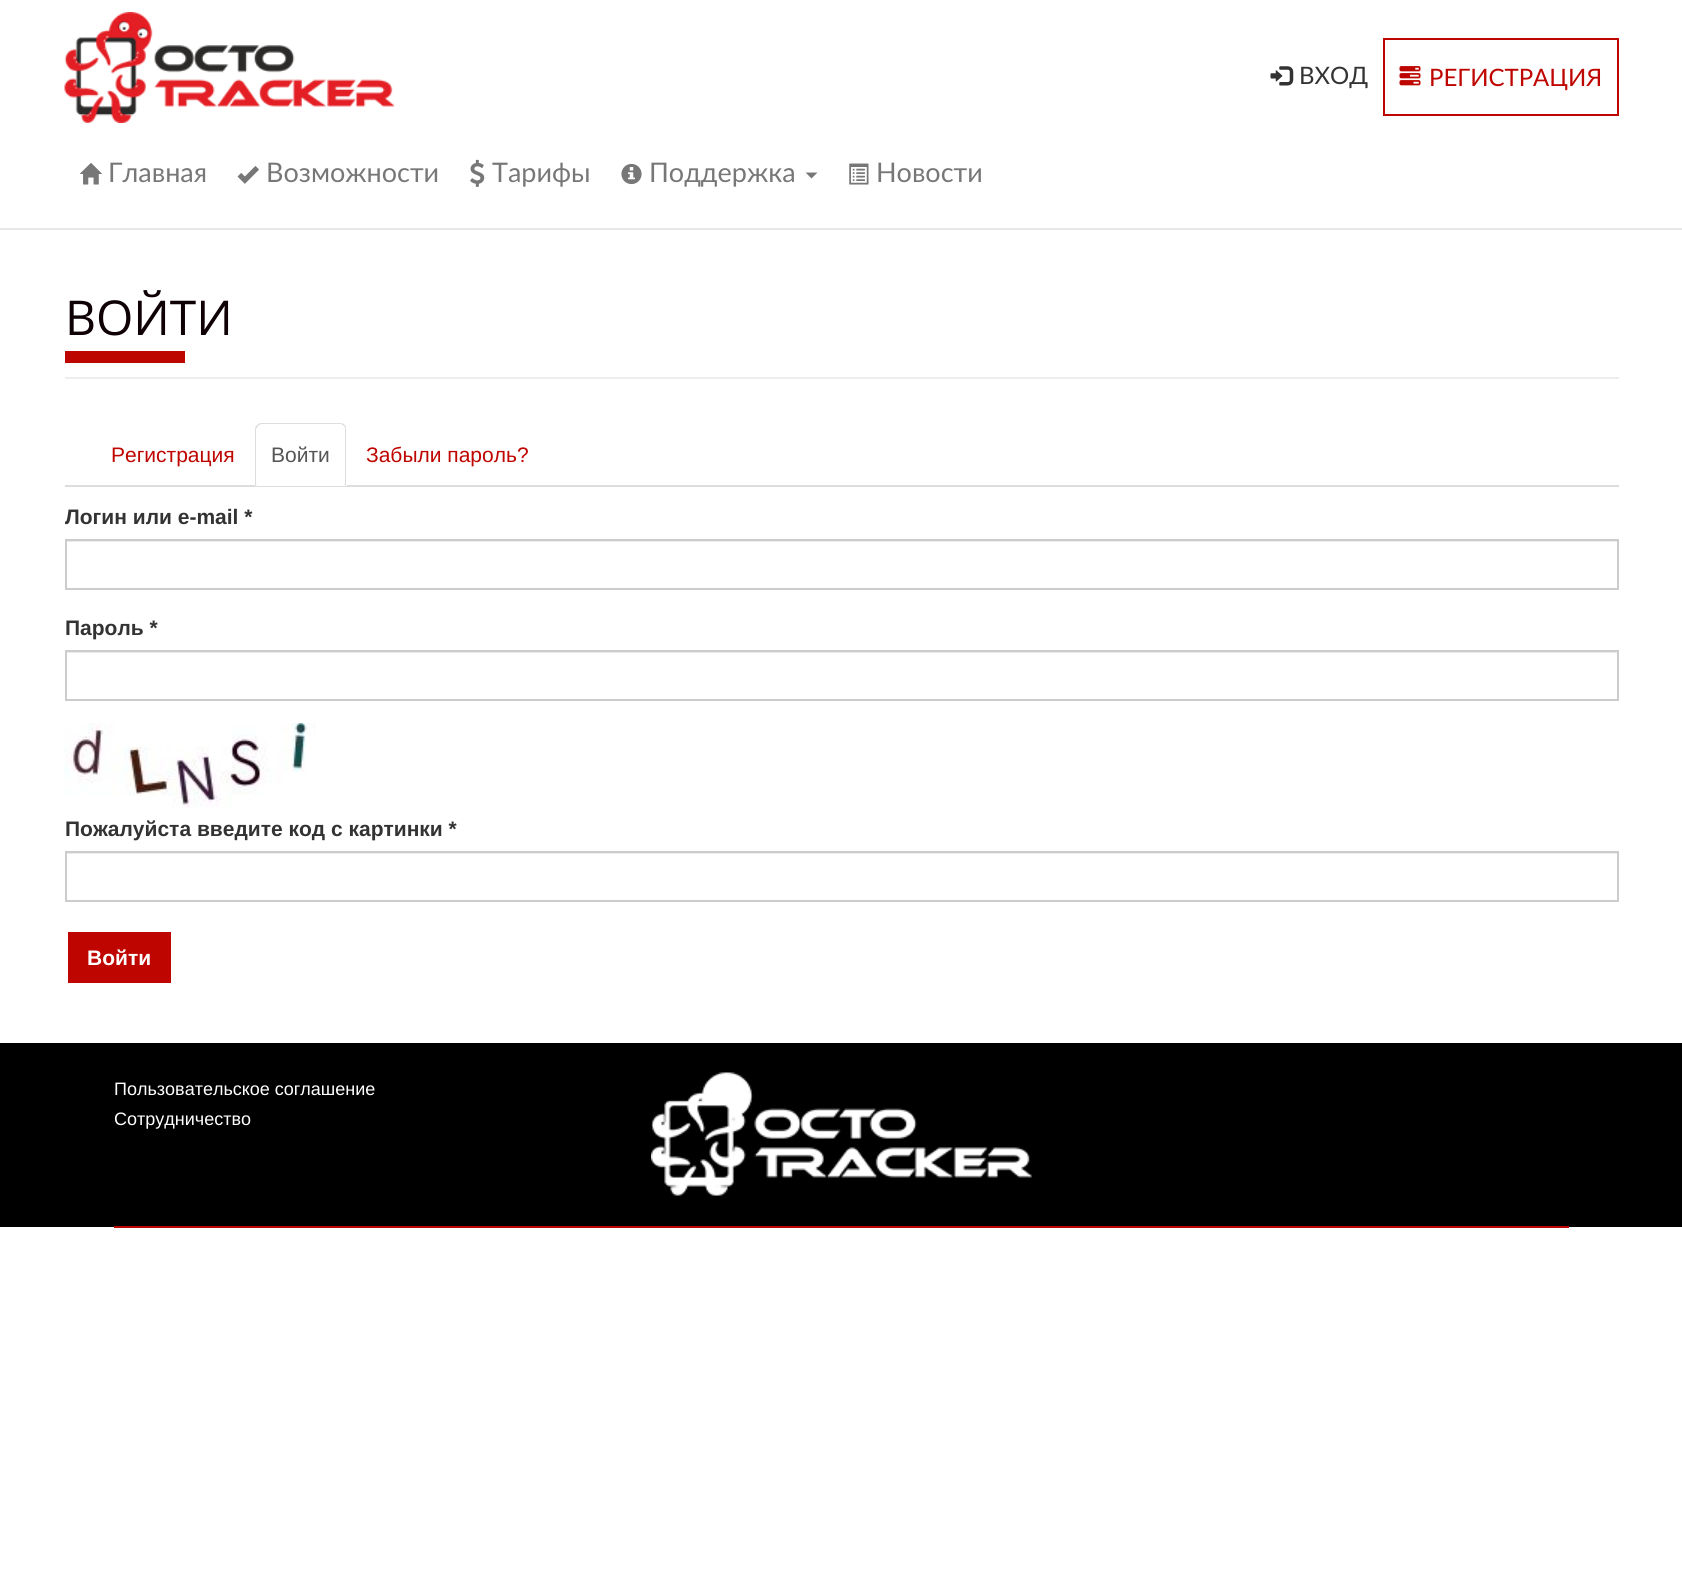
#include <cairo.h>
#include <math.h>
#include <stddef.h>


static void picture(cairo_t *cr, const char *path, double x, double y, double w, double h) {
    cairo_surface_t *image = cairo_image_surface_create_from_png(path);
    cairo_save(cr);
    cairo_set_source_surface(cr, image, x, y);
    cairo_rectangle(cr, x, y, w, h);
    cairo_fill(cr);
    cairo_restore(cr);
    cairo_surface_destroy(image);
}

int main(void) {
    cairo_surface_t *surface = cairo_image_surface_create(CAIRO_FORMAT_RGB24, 1682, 1591);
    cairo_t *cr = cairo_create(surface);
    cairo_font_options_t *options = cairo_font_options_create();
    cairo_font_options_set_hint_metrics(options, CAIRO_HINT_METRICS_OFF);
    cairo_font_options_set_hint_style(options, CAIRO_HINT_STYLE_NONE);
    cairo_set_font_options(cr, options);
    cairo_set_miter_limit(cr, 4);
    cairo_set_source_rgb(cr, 1, 1, 1);
    cairo_paint(cr);
    cairo_set_source_rgb(cr, 0.906, 0.906, 0.906);
    cairo_rectangle(cr, 0, 228, 1682, 2);
    cairo_fill(cr);
    picture(cr, "img1.png", 64, 12, 331, 111);
    picture(cr, "img2.png", 1270, 66, 24, 20);
    cairo_select_font_face(cr, "Lato", CAIRO_FONT_SLANT_NORMAL, CAIRO_FONT_WEIGHT_NORMAL);
    cairo_set_font_size(cr, 24);
    cairo_set_source_rgb(cr, 0.2, 0.2, 0.2);
    cairo_move_to(cr, 1299, 84);
    cairo_show_text(cr, "ВХОД");
    cairo_rectangle(cr, 1384, 39, 234, 76);
    cairo_set_source_rgb(cr, 0.745, 0.024, 0.004);
    cairo_stroke(cr);
    picture(cr, "img3.png", 1399, 66, 22, 20);
    cairo_set_source_rgb(cr, 0.745, 0.02, 0);
    cairo_move_to(cr, 1429, 86);
    cairo_show_text(cr, "РЕГИСТРАЦИЯ");
    picture(cr, "img4.png", 79, 163, 23, 22);
    cairo_set_font_size(cr, 27);
    cairo_set_source_rgb(cr, 0.467, 0.467, 0.467);
    cairo_move_to(cr, 108, 182);
    cairo_show_text(cr, "Главная");
    picture(cr, "img5.png", 237, 166, 22, 18);
    cairo_move_to(cr, 266, 182);
    cairo_show_text(cr, "Возможности");
    picture(cr, "img6.png", 470, 159, 15, 28);
    cairo_move_to(cr, 492, 182);
    cairo_show_text(cr, "Тарифы");
    picture(cr, "img7.png", 621, 163, 21, 22);
    cairo_move_to(cr, 649, 182);
    cairo_show_text(cr, "Поддержка");
    cairo_new_path(cr);
    cairo_move_to(cr, 805.5, 172.5);
    cairo_line_to(cr, 817.5, 172.5);
    cairo_line_to(cr, 811.5, 178.5);
    cairo_close_path(cr);
    cairo_fill(cr);
    picture(cr, "img8.png", 849, 163, 20, 22);
    cairo_move_to(cr, 876, 182);
    cairo_show_text(cr, "Новости");
    cairo_set_source_rgb(cr, 0.933, 0.933, 0.933);
    cairo_rectangle(cr, 65, 377, 1554, 2);
    cairo_fill(cr);
    cairo_select_font_face(cr, "Open Sans", CAIRO_FONT_SLANT_NORMAL, CAIRO_FONT_WEIGHT_NORMAL);
    cairo_set_font_size(cr, 48);
    cairo_set_source_rgb(cr, 0.055, 0, 0.016);
    cairo_move_to(cr, 65, 335);
    cairo_show_text(cr, "ВОЙТИ");
    cairo_set_source_rgb(cr, 0.745, 0.024, 0.004);
    cairo_rectangle(cr, 65, 351, 120, 12);
    cairo_fill(cr);
    cairo_set_source_rgb(cr, 0.867, 0.867, 0.867);
    cairo_rectangle(cr, 65, 485, 1554, 2);
    cairo_fill(cr);
    cairo_select_font_face(cr, "Liberation Sans", CAIRO_FONT_SLANT_NORMAL, CAIRO_FONT_WEIGHT_NORMAL);
    cairo_set_font_size(cr, 21);
    cairo_set_source_rgb(cr, 0.745, 0.02, 0);
    cairo_move_to(cr, 111, 462);
    cairo_show_text(cr, "Регистрация");
    cairo_set_source_rgb(cr, 1, 1, 1);
    cairo_new_path(cr);
    cairo_move_to(cr, 261, 423);
    cairo_line_to(cr, 341, 423);
    cairo_curve_to(cr, 344.5, 423, 347, 425.5, 347, 429);
    cairo_line_to(cr, 347, 486);
    cairo_line_to(cr, 255, 486);
    cairo_line_to(cr, 255, 429);
    cairo_curve_to(cr, 255, 425.5, 257.5, 423, 261, 423);
    cairo_close_path(cr);
    cairo_fill(cr);
    cairo_set_source_rgb(cr, 0.867, 0.867, 0.867);
    cairo_new_path(cr);
    cairo_move_to(cr, 261, 423);
    cairo_curve_to(cr, 260, 423, 258, 424, 257, 425);
    cairo_line_to(cr, 258, 426);
    cairo_line_to(cr, 261, 424);
    cairo_line_to(cr, 341, 424);
    cairo_line_to(cr, 344, 426);
    cairo_line_to(cr, 345, 425);
    cairo_curve_to(cr, 344, 424, 342, 423, 340, 423);
    cairo_close_path(cr);
    cairo_fill(cr);
    cairo_new_path(cr);
    cairo_move_to(cr, 345, 425);
    cairo_curve_to(cr, 346, 426, 346, 428, 346, 429);
    cairo_line_to(cr, 346, 486);
    cairo_line_to(cr, 344, 484);
    cairo_line_to(cr, 345, 484);
    cairo_line_to(cr, 345, 429);
    cairo_curve_to(cr, 345, 428, 345, 427, 344, 426);
    cairo_close_path(cr);
    cairo_fill(cr);
    cairo_new_path(cr);
    cairo_move_to(cr, 255, 486);
    cairo_line_to(cr, 257, 484);
    cairo_line_to(cr, 256, 484);
    cairo_line_to(cr, 256, 429);
    cairo_line_to(cr, 258, 426);
    cairo_line_to(cr, 257, 425);
    cairo_curve_to(cr, 256, 426, 255, 428, 255, 429);
    cairo_close_path(cr);
    cairo_fill(cr);
    cairo_set_source_rgb(cr, 0.333, 0.333, 0.333);
    cairo_move_to(cr, 271, 462);
    cairo_show_text(cr, "Войти");
    cairo_set_source_rgb(cr, 0.745, 0.02, 0);
    cairo_move_to(cr, 366, 462);
    cairo_show_text(cr, "Забыли пароль?");
    cairo_select_font_face(cr, "Liberation Sans", CAIRO_FONT_SLANT_NORMAL, CAIRO_FONT_WEIGHT_BOLD);
    cairo_set_source_rgb(cr, 0.2, 0.2, 0.2);
    cairo_move_to(cr, 65, 524);
    cairo_show_text(cr, "Логин или e-mail *");
    cairo_set_source_rgb(cr, 0.925, 0.925, 0.925);
    cairo_rectangle(cr, 66, 541, 1551, 1);
    cairo_fill(cr);
    cairo_rectangle(cr, 66, 540, 1552, 49);
    cairo_set_source_rgb(cr, 0.8, 0.8, 0.8);
    cairo_stroke(cr);
    cairo_set_source_rgb(cr, 0.2, 0.2, 0.2);
    cairo_move_to(cr, 65, 635);
    cairo_show_text(cr, "Пароль *");
    cairo_set_source_rgb(cr, 0.925, 0.925, 0.925);
    cairo_rectangle(cr, 66, 652, 1551, 1);
    cairo_fill(cr);
    cairo_rectangle(cr, 66, 651, 1552, 49);
    cairo_set_source_rgb(cr, 0.8, 0.8, 0.8);
    cairo_stroke(cr);
    picture(cr, "img9.png", 64, 723, 251, 85);
    cairo_set_source_rgb(cr, 0.2, 0.2, 0.2);
    cairo_move_to(cr, 65, 836);
    cairo_show_text(cr, "Пожалуйста введите код с картинки *");
    cairo_set_source_rgb(cr, 0.925, 0.925, 0.925);
    cairo_rectangle(cr, 66, 853, 1551, 1);
    cairo_fill(cr);
    cairo_rectangle(cr, 66, 852, 1552, 49);
    cairo_set_source_rgb(cr, 0.8, 0.8, 0.8);
    cairo_stroke(cr);
    cairo_set_source_rgb(cr, 0.745, 0.02, 0);
    cairo_rectangle(cr, 68, 932, 103, 51);
    cairo_fill(cr);
    cairo_set_source_rgb(cr, 1, 1, 1);
    cairo_move_to(cr, 87, 965);
    cairo_show_text(cr, "Войти");
    cairo_set_source_rgb(cr, 0, 0, 0);
    cairo_rectangle(cr, 0, 1043, 1682, 184);
    cairo_fill(cr);
    cairo_set_source_rgb(cr, 0.745, 0.024, 0.004);
    cairo_rectangle(cr, 114, 1226, 1455, 2);
    cairo_fill(cr);
    cairo_select_font_face(cr, "Liberation Sans", CAIRO_FONT_SLANT_NORMAL, CAIRO_FONT_WEIGHT_NORMAL);
    cairo_set_font_size(cr, 18);
    cairo_set_source_rgb(cr, 1, 1, 1);
    cairo_move_to(cr, 114, 1095);
    cairo_show_text(cr, "Пользовательское соглашение");
    cairo_move_to(cr, 114, 1125);
    cairo_show_text(cr, "Сотрудничество");
    picture(cr, "img10.png", 651, 1072, 381, 124);
    cairo_surface_write_to_png(surface, "page.png");
    cairo_font_options_destroy(options);
    cairo_destroy(cr);
    cairo_surface_destroy(surface);
    return 0;
}
